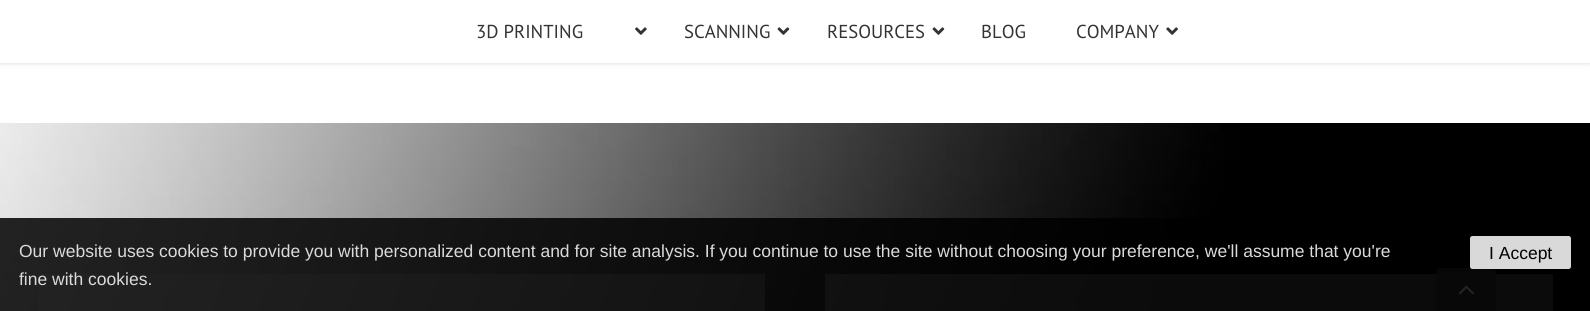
#include <cairo.h>
#include <math.h>
#include <stddef.h>


static void round_rect(cairo_t *cr, double x, double y, double w, double h, double r) {
    cairo_new_sub_path(cr);
    cairo_arc(cr, x + w - r, y + h - r, r, 0, M_PI / 2);
    cairo_arc(cr, x + r, y + h - r, r, M_PI / 2, M_PI);
    cairo_arc(cr, x + r, y + r, r, M_PI, 1.5 * M_PI);
    cairo_arc(cr, x + w - r, y + r, r, 1.5 * M_PI, 2 * M_PI);
    cairo_close_path(cr);
}

static void shadow(cairo_t *cr, double x, double y, double w, double h, double r, double blur, double alpha) {
    cairo_push_group_with_content(cr, CAIRO_CONTENT_ALPHA);
    cairo_set_operator(cr, CAIRO_OPERATOR_SOURCE);
    for (int i = 15; i >= -15 && fmin(w, h) + blur * i / 3 > 0; i -= 2) {
        double e = blur * i / 6;
        cairo_set_source_rgba(cr, 0, 0, 0, alpha * erfc((i - 1) / 8.5) / 2);
        round_rect(cr, x - e, y - e, w + 2 * e, h + 2 * e, fmax(0, fmin(r + e + blur * .6, fmin(w, h) / 2 + e)));
        cairo_fill(cr);
    }
    cairo_pattern_t *soft = cairo_pop_group(cr);
    cairo_mask(cr, soft);
    cairo_pattern_destroy(soft);
}

static void picture(cairo_t *cr, const char *path, double x, double y, double w, double h) {
    cairo_surface_t *image = cairo_image_surface_create_from_png(path);
    cairo_save(cr);
    cairo_set_source_surface(cr, image, x, y);
    cairo_rectangle(cr, x, y, w, h);
    cairo_fill(cr);
    cairo_restore(cr);
    cairo_surface_destroy(image);
}

int main(void) {
    cairo_surface_t *surface = cairo_image_surface_create(CAIRO_FORMAT_RGB24, 1590, 311);
    cairo_t *cr = cairo_create(surface);
    cairo_font_options_t *options = cairo_font_options_create();
    cairo_font_options_set_hint_metrics(options, CAIRO_HINT_METRICS_OFF);
    cairo_font_options_set_hint_style(options, CAIRO_HINT_STYLE_NONE);
    cairo_set_font_options(cr, options);
    cairo_set_miter_limit(cr, 4);
    cairo_set_source_rgb(cr, 1, 1, 1);
    cairo_paint(cr);
    cairo_set_source_rgb(cr, 0, 0, 0);
    shadow(cr, 0, 1, 1590, 63, 0, 2, 0.12);
    cairo_set_source_rgb(cr, 1, 1, 1);
    cairo_rectangle(cr, 0, 0, 1590, 63);
    cairo_fill(cr);
    cairo_select_font_face(cr, "PT Sans", CAIRO_FONT_SLANT_NORMAL, CAIRO_FONT_WEIGHT_NORMAL);
    cairo_set_font_size(cr, 18.75);
    cairo_set_source_rgb(cr, 0.2, 0.2, 0.2);
    cairo_move_to(cr, 476, 38);
    cairo_show_text(cr, "3D PRINTING");
    picture(cr, "img1.png", 635, 27, 12, 8);
    cairo_move_to(cr, 684, 38);
    cairo_show_text(cr, "SCANNING");
    picture(cr, "img2.png", 777, 27, 13, 8);
    cairo_move_to(cr, 827, 38);
    cairo_show_text(cr, "RESOURCES");
    picture(cr, "img2.png", 932, 27, 13, 8);
    cairo_move_to(cr, 981, 38);
    cairo_show_text(cr, "BLOG");
    cairo_move_to(cr, 1076, 38);
    cairo_show_text(cr, "COMPANY");
    picture(cr, "img3.png", 1166, 27, 12, 8);
    picture(cr, "img4.png", 0, 123, 1590, 188);
    cairo_set_source_rgba(cr, 1, 1, 1, 0.3);
    cairo_rectangle(cr, 38, 274, 727, 37);
    cairo_fill(cr);
    cairo_rectangle(cr, 825, 274, 728, 37);
    cairo_fill(cr);
    cairo_set_source_rgba(cr, 0.2, 0.2, 0.2, 0.9);
    cairo_new_path(cr);
    cairo_move_to(cr, 1441, 268);
    cairo_line_to(cr, 1491, 268);
    cairo_curve_to(cr, 1494, 268, 1496, 270, 1496, 273);
    cairo_line_to(cr, 1496, 311);
    cairo_line_to(cr, 1436, 311);
    cairo_line_to(cr, 1436, 273);
    cairo_curve_to(cr, 1436, 270, 1438, 268, 1441, 268);
    cairo_close_path(cr);
    cairo_fill(cr);
    picture(cr, "img5.png", 1458, 285, 16, 10);
    cairo_set_source_rgba(cr, 0, 0, 0, 0.85);
    cairo_rectangle(cr, 0, 218, 1553, 93);
    cairo_fill(cr);
    cairo_select_font_face(cr, "Liberation Sans", CAIRO_FONT_SLANT_NORMAL, CAIRO_FONT_WEIGHT_NORMAL);
    cairo_set_font_size(cr, 17.5);
    cairo_set_source_rgb(cr, 0.859, 0.859, 0.859);
    cairo_move_to(cr, 19, 257);
    cairo_show_text(cr, "Our website uses cookies to provide you with personalized content and for site analysis. If you continue to use the site without choosing your preference, we'll assume that you're");
    cairo_move_to(cr, 19, 285);
    cairo_show_text(cr, "fine with cookies.");
    cairo_set_source_rgba(cr, 1, 1, 1, 0.85);
    round_rect(cr, 1470, 236, 101, 33, 2.5);
    cairo_fill(cr);
    cairo_set_source_rgb(cr, 0, 0, 0);
    cairo_move_to(cr, 1489, 259);
    cairo_show_text(cr, "I Accept");
    cairo_surface_write_to_png(surface, "page.png");
    cairo_font_options_destroy(options);
    cairo_destroy(cr);
    cairo_surface_destroy(surface);
    return 0;
}
